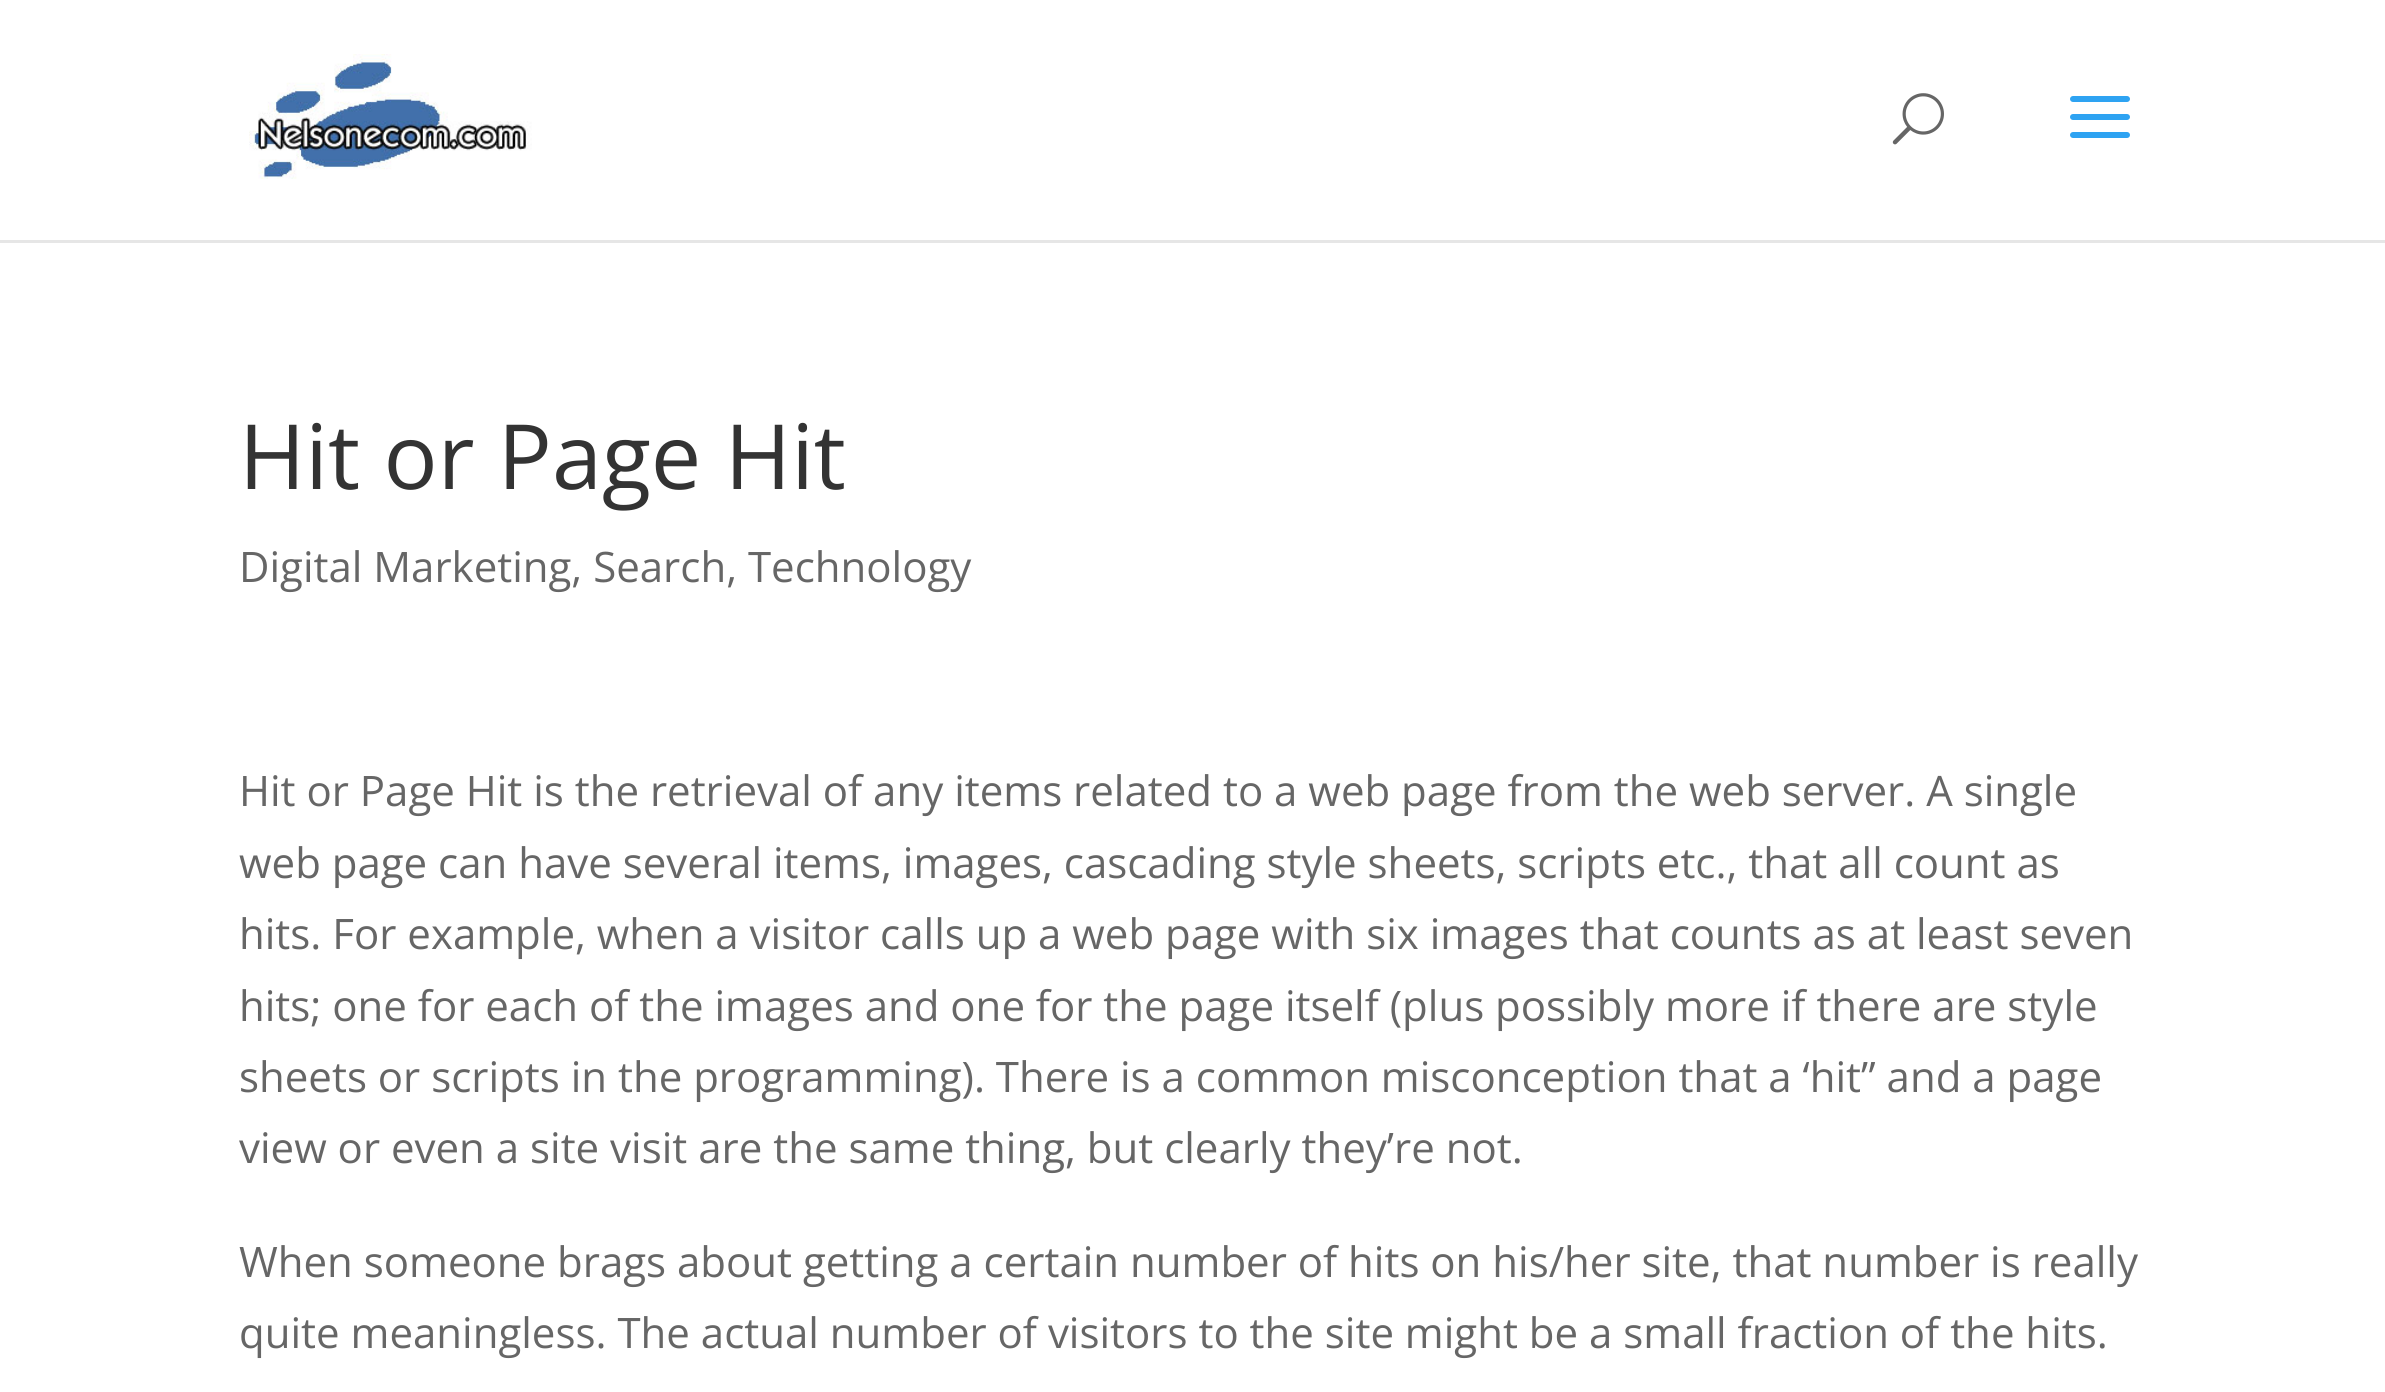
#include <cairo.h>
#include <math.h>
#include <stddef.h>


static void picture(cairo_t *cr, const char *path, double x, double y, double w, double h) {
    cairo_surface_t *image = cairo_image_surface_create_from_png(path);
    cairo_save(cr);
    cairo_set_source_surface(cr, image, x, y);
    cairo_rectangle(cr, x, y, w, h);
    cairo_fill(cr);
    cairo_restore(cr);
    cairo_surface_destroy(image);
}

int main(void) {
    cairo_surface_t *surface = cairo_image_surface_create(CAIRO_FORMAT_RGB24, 2385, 1392);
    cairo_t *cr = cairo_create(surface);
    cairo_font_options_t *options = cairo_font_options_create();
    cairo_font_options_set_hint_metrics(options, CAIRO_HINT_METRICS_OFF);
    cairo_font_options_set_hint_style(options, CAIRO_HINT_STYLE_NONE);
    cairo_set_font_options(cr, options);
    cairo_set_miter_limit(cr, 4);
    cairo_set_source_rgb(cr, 1, 1, 1);
    cairo_paint(cr);
    cairo_set_source_rgb(cr, 0.902, 0.902, 0.902);
    cairo_rectangle(cr, 0, 240, 2385, 3);
    cairo_fill(cr);
    picture(cr, "img1.png", 249, 54, 283, 125);
    picture(cr, "img2.png", 1892, 93, 52, 52);
    picture(cr, "img3.png", 2070, 96, 60, 42);
    cairo_select_font_face(cr, "Open Sans", CAIRO_FONT_SLANT_NORMAL, CAIRO_FONT_WEIGHT_NORMAL);
    cairo_set_font_size(cr, 90);
    cairo_set_source_rgb(cr, 0.2, 0.2, 0.2);
    cairo_move_to(cr, 239, 489);
    cairo_show_text(cr, "Hit or Page Hit");
    cairo_set_font_size(cr, 42);
    cairo_set_source_rgb(cr, 0.4, 0.4, 0.4);
    cairo_move_to(cr, 239, 582);
    cairo_show_text(cr, "Digital Marketing, Search, Technology");
    cairo_move_to(cr, 239, 806);
    cairo_show_text(cr, "Hit or Page Hit is the retrieval of any items related to a web page from the web server. A single");
    cairo_move_to(cr, 239, 878);
    cairo_show_text(cr, "web page can have several items, images, cascading style sheets, scripts etc., that all count as");
    cairo_move_to(cr, 239, 949);
    cairo_show_text(cr, "hits. For example, when a visitor calls up a web page with six images that counts as at least seven");
    cairo_move_to(cr, 239, 1021);
    cairo_show_text(cr, "hits; one for each of the images and one for the page itself (plus possibly more if there are style");
    cairo_move_to(cr, 239, 1092);
    cairo_show_text(cr, "sheets or scripts in the programming). There is a common misconception that a ‘hit” and a page");
    cairo_move_to(cr, 239, 1163);
    cairo_show_text(cr, "view or even a site visit are the same thing, but clearly they’re not.");
    cairo_move_to(cr, 239, 1277);
    cairo_show_text(cr, "When someone brags about getting a certain number of hits on his/her site, that number is really");
    cairo_move_to(cr, 239, 1348);
    cairo_show_text(cr, "quite meaningless. The actual number of visitors to the site might be a small fraction of the hits.");
    cairo_surface_write_to_png(surface, "page.png");
    cairo_font_options_destroy(options);
    cairo_destroy(cr);
    cairo_surface_destroy(surface);
    return 0;
}
